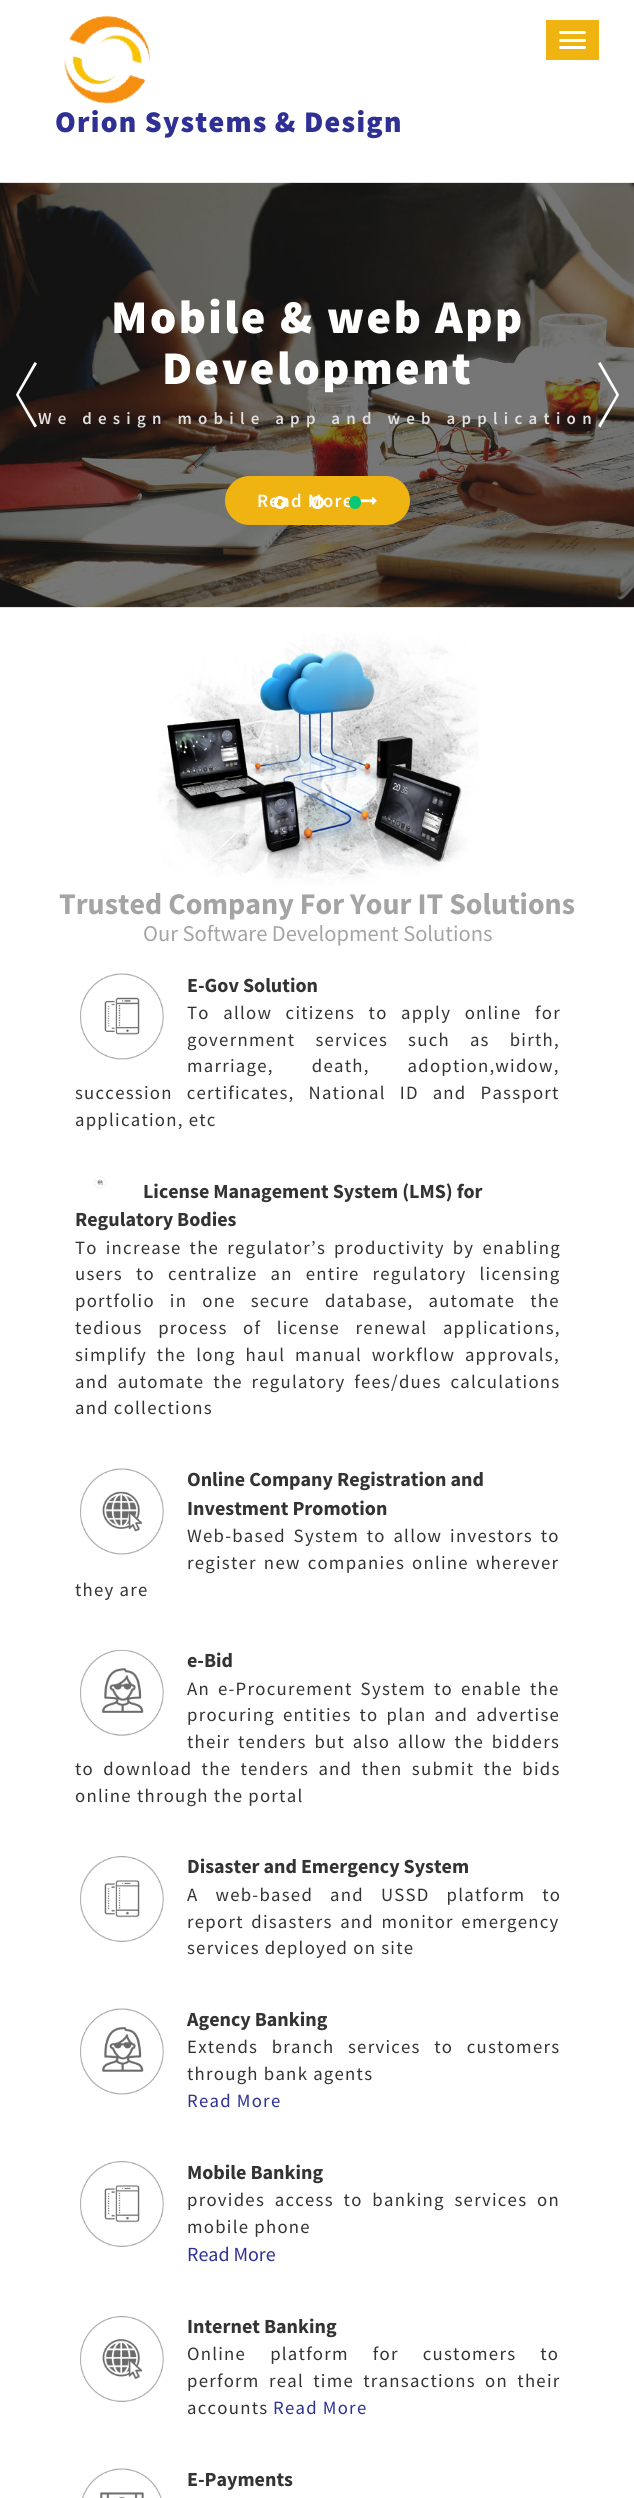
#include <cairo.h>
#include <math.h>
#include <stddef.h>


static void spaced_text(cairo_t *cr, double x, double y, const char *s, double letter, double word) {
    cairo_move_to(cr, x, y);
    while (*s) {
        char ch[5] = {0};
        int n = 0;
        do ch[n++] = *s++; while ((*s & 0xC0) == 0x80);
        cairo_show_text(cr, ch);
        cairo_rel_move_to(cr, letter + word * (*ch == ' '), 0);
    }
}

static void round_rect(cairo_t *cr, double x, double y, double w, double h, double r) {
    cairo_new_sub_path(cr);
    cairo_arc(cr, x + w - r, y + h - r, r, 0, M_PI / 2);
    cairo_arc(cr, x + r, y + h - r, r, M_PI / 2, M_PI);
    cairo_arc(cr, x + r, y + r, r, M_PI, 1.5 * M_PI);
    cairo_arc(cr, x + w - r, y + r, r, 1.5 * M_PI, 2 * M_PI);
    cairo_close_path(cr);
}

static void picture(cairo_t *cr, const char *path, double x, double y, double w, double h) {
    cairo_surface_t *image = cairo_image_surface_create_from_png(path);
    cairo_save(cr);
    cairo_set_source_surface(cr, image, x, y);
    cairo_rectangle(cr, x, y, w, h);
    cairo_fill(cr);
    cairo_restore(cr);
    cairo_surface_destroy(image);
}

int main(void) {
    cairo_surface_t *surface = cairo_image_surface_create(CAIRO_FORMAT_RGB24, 634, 2498);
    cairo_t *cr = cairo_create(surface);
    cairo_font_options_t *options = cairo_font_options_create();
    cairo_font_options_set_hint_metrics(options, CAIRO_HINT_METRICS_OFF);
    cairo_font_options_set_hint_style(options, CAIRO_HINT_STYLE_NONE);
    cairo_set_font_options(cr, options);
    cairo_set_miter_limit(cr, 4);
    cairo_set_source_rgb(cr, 1, 1, 1);
    cairo_paint(cr);
    cairo_set_source_rgb(cr, 0.937, 0.702, 0.071);
    cairo_rectangle(cr, 546, 20, 53, 40);
    cairo_fill(cr);
    cairo_set_source_rgb(cr, 1, 1, 1);
    round_rect(cr, 559, 31, 27, 3, 1.5);
    cairo_fill(cr);
    round_rect(cr, 559, 39, 27, 3, 1.5);
    cairo_fill(cr);
    round_rect(cr, 559, 46, 27, 3, 1.5);
    cairo_fill(cr);
    picture(cr, "img1.png", 64, 16, 87, 88);
    cairo_select_font_face(cr, "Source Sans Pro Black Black", CAIRO_FONT_SLANT_NORMAL, CAIRO_FONT_WEIGHT_NORMAL);
    cairo_set_font_size(cr, 30);
    cairo_set_source_rgb(cr, 0.18, 0.188, 0.58);
    spaced_text(cr, 55, 132, "Orion Systems & Design", 1.25, 0);
    picture(cr, "img2.png", 0, 182, 634, 426);
    cairo_set_source_rgb(cr, 1, 1, 1);
    cairo_new_path(cr);
    cairo_move_to(cr, 34.5, 362);
    cairo_line_to(cr, 37, 363.5);
    cairo_line_to(cr, 18, 396);
    cairo_line_to(cr, 16, 394.5);
    cairo_close_path(cr);
    cairo_fill(cr);
    cairo_new_path(cr);
    cairo_move_to(cr, 16, 395);
    cairo_line_to(cr, 18, 393.5);
    cairo_line_to(cr, 37, 426);
    cairo_line_to(cr, 34.5, 427.5);
    cairo_close_path(cr);
    cairo_fill(cr);
    cairo_set_font_size(cr, 46.9);
    spaced_text(cr, 111, 333, "Mobile & web App", 2.5, 0);
    spaced_text(cr, 162, 384, "Development", 2.5, 0);
    cairo_select_font_face(cr, "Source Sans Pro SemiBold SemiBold", CAIRO_FONT_SLANT_NORMAL, CAIRO_FONT_WEIGHT_NORMAL);
    cairo_set_font_size(cr, 16.9);
    cairo_set_source_rgb(cr, 0.886, 0.875, 0.875);
    spaced_text(cr, 38, 424, "We design mobile app and web application", 6.25, 0);
    cairo_set_source_rgb(cr, 0.937, 0.702, 0.071);
    round_rect(cr, 225, 476, 185, 49, 24.5);
    cairo_fill(cr);
    cairo_set_font_size(cr, 18.75);
    cairo_set_source_rgb(cr, 1, 1, 1);
    spaced_text(cr, 257, 507, "Read More", 1.25, 0);
    picture(cr, "img3.png", 360, 496, 17, 9);
    cairo_new_path(cr);
    cairo_move_to(cr, 598, 363.5);
    cairo_line_to(cr, 600.5, 362);
    cairo_line_to(cr, 619, 394.5);
    cairo_line_to(cr, 617, 396);
    cairo_close_path(cr);
    cairo_fill(cr);
    cairo_new_path(cr);
    cairo_move_to(cr, 617, 393.5);
    cairo_line_to(cr, 619, 395);
    cairo_line_to(cr, 600.5, 427.5);
    cairo_line_to(cr, 598, 426);
    cairo_close_path(cr);
    cairo_fill(cr);
    round_rect(cr, 275.5, 497.5, 9, 10, 4.5);
    cairo_set_line_width(cr, 3);
    cairo_stroke(cr);
    cairo_arc(cr, 317.5, 502.5, 5, 0, 2 * M_PI);
    cairo_stroke(cr);
    cairo_set_source_rgb(cr, 0.039, 0.784, 0.463);
    round_rect(cr, 350.5, 497.5, 9, 10, 4.5);
    cairo_fill_preserve(cr);
    cairo_stroke(cr);
    picture(cr, "img4.png", 157, 633, 322, 252);
    cairo_select_font_face(cr, "Source Sans Pro", CAIRO_FONT_SLANT_NORMAL, CAIRO_FONT_WEIGHT_BOLD);
    cairo_set_font_size(cr, 30);
    cairo_set_source_rgb(cr, 0.643, 0.643, 0.643);
    cairo_move_to(cr, 59, 914);
    cairo_show_text(cr, "Trusted Company For Your IT Solutions");
    cairo_select_font_face(cr, "Source Sans Pro", CAIRO_FONT_SLANT_NORMAL, CAIRO_FONT_WEIGHT_NORMAL);
    cairo_set_font_size(cr, 22.5);
    cairo_move_to(cr, 143, 941);
    cairo_show_text(cr, "Our Software Development Solutions");
    picture(cr, "img5.png", 80, 973, 84, 87);
    cairo_select_font_face(cr, "Source Sans Pro", CAIRO_FONT_SLANT_NORMAL, CAIRO_FONT_WEIGHT_BOLD);
    cairo_set_font_size(cr, 20);
    cairo_set_source_rgb(cr, 0.2, 0.2, 0.2);
    cairo_move_to(cr, 187, 992);
    cairo_show_text(cr, "E-Gov Solution");
    cairo_select_font_face(cr, "Source Sans Pro", CAIRO_FONT_SLANT_NORMAL, CAIRO_FONT_WEIGHT_NORMAL);
    cairo_set_font_size(cr, 18.75);
    spaced_text(cr, 187, 1019, "To allow citizens to apply online for", 1.25, 8.5);
    spaced_text(cr, 187, 1046, "government services such as birth,", 1.25, 15);
    spaced_text(cr, 187, 1072, "marriage, death, adoption,widow,", 1.25, 33);
    spaced_text(cr, 75, 1099, "succession certificates, National ID and Passport", 1.25, 9);
    spaced_text(cr, 75, 1126, "application, etc", 1.25, 0);
    picture(cr, "img6.png", 94, 1176, 13, 13);
    cairo_select_font_face(cr, "Source Sans Pro", CAIRO_FONT_SLANT_NORMAL, CAIRO_FONT_WEIGHT_BOLD);
    cairo_set_font_size(cr, 20);
    cairo_move_to(cr, 143, 1198);
    cairo_show_text(cr, "License Management System (LMS) for");
    cairo_move_to(cr, 75, 1226);
    cairo_show_text(cr, "Regulatory Bodies");
    cairo_select_font_face(cr, "Source Sans Pro", CAIRO_FONT_SLANT_NORMAL, CAIRO_FONT_WEIGHT_NORMAL);
    cairo_set_font_size(cr, 18.75);
    spaced_text(cr, 75, 1254, "To increase the regulator’s productivity by enabling", 1.25, 3);
    spaced_text(cr, 75, 1280, "users to centralize an entire regulatory licensing", 1.25, 8);
    spaced_text(cr, 75, 1307, "portfolio in one secure database, automate the", 1.25, 10);
    spaced_text(cr, 75, 1334, "tedious process of license renewal applications,", 1.25, 10.5);
    spaced_text(cr, 75, 1361, "simplify the long haul manual workflow approvals,", 1.25, 4.75);
    spaced_text(cr, 75, 1388, "and automate the regulatory fees/dues calculations", 1.25, 3.75);
    spaced_text(cr, 75, 1414, "and collections", 1.25, 0);
    picture(cr, "img7.png", 80, 1468, 84, 87);
    cairo_select_font_face(cr, "Source Sans Pro", CAIRO_FONT_SLANT_NORMAL, CAIRO_FONT_WEIGHT_BOLD);
    cairo_set_font_size(cr, 20);
    cairo_move_to(cr, 187, 1486);
    cairo_show_text(cr, "Online Company Registration and");
    cairo_move_to(cr, 187, 1515);
    cairo_show_text(cr, "Investment Promotion");
    cairo_select_font_face(cr, "Source Sans Pro", CAIRO_FONT_SLANT_NORMAL, CAIRO_FONT_WEIGHT_NORMAL);
    cairo_set_font_size(cr, 18.75);
    spaced_text(cr, 187, 1542, "Web-based System to allow investors to", 1.25, 2.75);
    spaced_text(cr, 187, 1569, "register new companies online wherever", 1.25, 2);
    spaced_text(cr, 75, 1596, "they are", 1.25, 0);
    picture(cr, "img8.png", 80, 1649, 84, 87);
    cairo_select_font_face(cr, "Source Sans Pro", CAIRO_FONT_SLANT_NORMAL, CAIRO_FONT_WEIGHT_BOLD);
    cairo_set_font_size(cr, 20);
    cairo_move_to(cr, 187, 1667);
    cairo_show_text(cr, "e-Bid");
    cairo_select_font_face(cr, "Source Sans Pro", CAIRO_FONT_SLANT_NORMAL, CAIRO_FONT_WEIGHT_NORMAL);
    cairo_set_font_size(cr, 18.75);
    spaced_text(cr, 187, 1695, "An e-Procurement System to enable the", 1.25, 3);
    spaced_text(cr, 187, 1721, "procuring entities to plan and advertise", 1.25, 3);
    spaced_text(cr, 187, 1748, "their tenders but also allow the bidders", 1.25, 2.75);
    spaced_text(cr, 75, 1775, "to download the tenders and then submit the bids", 1.25, 4.25);
    spaced_text(cr, 75, 1802, "online through the portal", 1.25, 0);
    picture(cr, "img9.png", 80, 1856, 84, 86);
    cairo_select_font_face(cr, "Source Sans Pro", CAIRO_FONT_SLANT_NORMAL, CAIRO_FONT_WEIGHT_BOLD);
    cairo_set_font_size(cr, 20);
    cairo_move_to(cr, 187, 1873);
    cairo_show_text(cr, "Disaster and Emergency System");
    cairo_select_font_face(cr, "Source Sans Pro", CAIRO_FONT_SLANT_NORMAL, CAIRO_FONT_WEIGHT_NORMAL);
    cairo_set_font_size(cr, 18.75);
    spaced_text(cr, 187, 1901, "A web-based and USSD platform to", 1.25, 12);
    spaced_text(cr, 187, 1928, "report disasters and monitor emergency", 1.25, 2.5);
    spaced_text(cr, 187, 1954, "services deployed on site", 1.25, 0);
    picture(cr, "img10.png", 80, 2008, 84, 87);
    cairo_select_font_face(cr, "Source Sans Pro", CAIRO_FONT_SLANT_NORMAL, CAIRO_FONT_WEIGHT_BOLD);
    cairo_set_font_size(cr, 20);
    cairo_move_to(cr, 187, 2026);
    cairo_show_text(cr, "Agency Banking");
    cairo_select_font_face(cr, "Source Sans Pro", CAIRO_FONT_SLANT_NORMAL, CAIRO_FONT_WEIGHT_NORMAL);
    cairo_set_font_size(cr, 18.75);
    spaced_text(cr, 187, 2053, "Extends branch services to customers", 1.25, 8.5);
    spaced_text(cr, 187, 2080, "through bank agents", 1.25, 0);
    cairo_set_source_rgb(cr, 0.18, 0.188, 0.58);
    spaced_text(cr, 187, 2107, "Read More", 1.25, 0);
    picture(cr, "img11.png", 80, 2161, 84, 86);
    cairo_select_font_face(cr, "Source Sans Pro", CAIRO_FONT_SLANT_NORMAL, CAIRO_FONT_WEIGHT_BOLD);
    cairo_set_font_size(cr, 20);
    cairo_set_source_rgb(cr, 0.2, 0.2, 0.2);
    cairo_move_to(cr, 187, 2179);
    cairo_show_text(cr, "Mobile Banking");
    cairo_select_font_face(cr, "Source Sans Pro", CAIRO_FONT_SLANT_NORMAL, CAIRO_FONT_WEIGHT_NORMAL);
    cairo_set_font_size(cr, 18.75);
    spaced_text(cr, 187, 2206, "provides access to banking services on", 1.25, 4.75);
    spaced_text(cr, 187, 2233, "mobile phone", 1.25, 0);
    cairo_set_font_size(cr, 20);
    cairo_set_source_rgb(cr, 0.18, 0.188, 0.58);
    cairo_move_to(cr, 187, 2261);
    cairo_show_text(cr, "Read More");
    picture(cr, "img12.png", 80, 2316, 84, 86);
    cairo_select_font_face(cr, "Source Sans Pro", CAIRO_FONT_SLANT_NORMAL, CAIRO_FONT_WEIGHT_BOLD);
    cairo_set_source_rgb(cr, 0.2, 0.2, 0.2);
    cairo_move_to(cr, 187, 2333);
    cairo_show_text(cr, "Internet Banking");
    cairo_select_font_face(cr, "Source Sans Pro", CAIRO_FONT_SLANT_NORMAL, CAIRO_FONT_WEIGHT_NORMAL);
    cairo_set_font_size(cr, 18.75);
    spaced_text(cr, 187, 2360, "Online platform for customers to", 1.25, 19);
    spaced_text(cr, 187, 2387, "perform real time transactions on their", 1.25, 4.25);
    spaced_text(cr, 187, 2414, "accounts", 1.25, 0);
    cairo_set_source_rgb(cr, 0.18, 0.188, 0.58);
    spaced_text(cr, 273, 2414, "Read More", 1.25, 0);
    picture(cr, "img13.png", 82, 2468, 80, 30);
    cairo_select_font_face(cr, "Source Sans Pro", CAIRO_FONT_SLANT_NORMAL, CAIRO_FONT_WEIGHT_BOLD);
    cairo_set_font_size(cr, 20);
    cairo_set_source_rgb(cr, 0.2, 0.2, 0.2);
    cairo_move_to(cr, 187, 2486);
    cairo_show_text(cr, "E-Payments");
    cairo_surface_write_to_png(surface, "page.png");
    cairo_font_options_destroy(options);
    cairo_destroy(cr);
    cairo_surface_destroy(surface);
    return 0;
}
